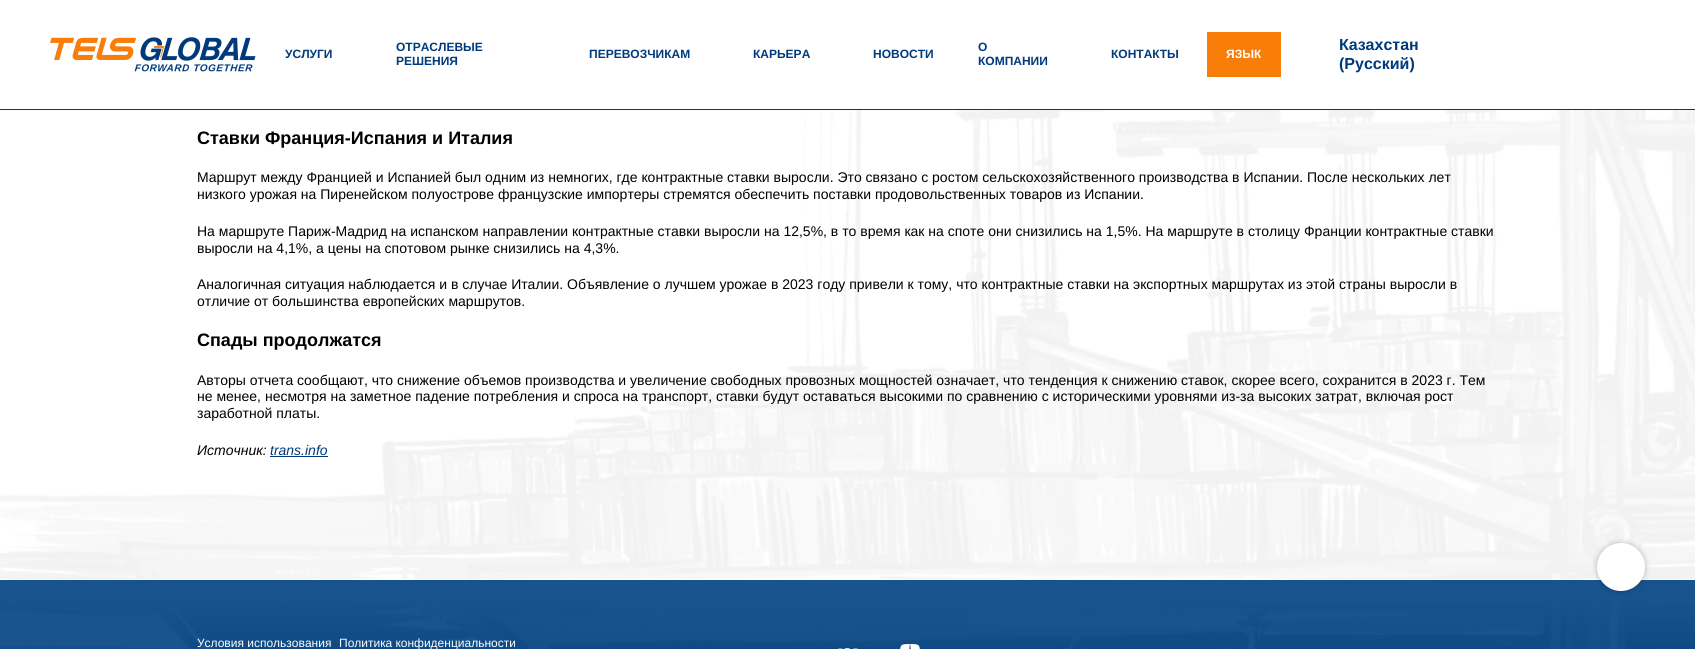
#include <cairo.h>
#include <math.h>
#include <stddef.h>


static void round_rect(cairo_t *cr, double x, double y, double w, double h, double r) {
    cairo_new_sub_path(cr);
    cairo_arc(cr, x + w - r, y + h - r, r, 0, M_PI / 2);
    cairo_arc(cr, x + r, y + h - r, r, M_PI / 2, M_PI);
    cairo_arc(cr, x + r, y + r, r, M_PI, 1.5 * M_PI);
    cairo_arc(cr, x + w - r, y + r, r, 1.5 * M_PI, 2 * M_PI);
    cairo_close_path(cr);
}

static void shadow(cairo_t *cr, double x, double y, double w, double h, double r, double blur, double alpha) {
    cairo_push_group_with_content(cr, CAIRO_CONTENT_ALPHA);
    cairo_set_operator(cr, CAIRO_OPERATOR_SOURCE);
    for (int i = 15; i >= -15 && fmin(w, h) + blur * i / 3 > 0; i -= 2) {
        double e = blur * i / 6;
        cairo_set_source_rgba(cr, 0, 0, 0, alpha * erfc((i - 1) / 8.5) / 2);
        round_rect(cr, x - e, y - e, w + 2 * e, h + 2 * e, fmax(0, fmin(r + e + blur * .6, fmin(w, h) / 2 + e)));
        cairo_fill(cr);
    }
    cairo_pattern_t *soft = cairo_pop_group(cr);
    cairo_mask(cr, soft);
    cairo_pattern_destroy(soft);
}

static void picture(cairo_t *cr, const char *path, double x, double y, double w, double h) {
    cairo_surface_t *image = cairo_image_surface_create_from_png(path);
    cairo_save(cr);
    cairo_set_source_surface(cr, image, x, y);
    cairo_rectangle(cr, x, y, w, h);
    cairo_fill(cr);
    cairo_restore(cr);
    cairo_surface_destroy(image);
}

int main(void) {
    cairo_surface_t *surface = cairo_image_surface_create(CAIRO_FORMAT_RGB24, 1695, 649);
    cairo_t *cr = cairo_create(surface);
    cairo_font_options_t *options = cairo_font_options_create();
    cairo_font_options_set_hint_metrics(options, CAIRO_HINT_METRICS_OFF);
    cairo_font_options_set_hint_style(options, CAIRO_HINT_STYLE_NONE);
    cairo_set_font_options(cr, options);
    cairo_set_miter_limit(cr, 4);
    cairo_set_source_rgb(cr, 1, 1, 1);
    cairo_paint(cr);
    picture(cr, "img2.png", 0, 0, 1695, 649);
    cairo_set_source_rgba(cr, 1, 1, 1, 0.97);
    cairo_rectangle(cr, 789, 0, 906, 109);
    cairo_fill(cr);
    cairo_set_source_rgb(cr, 0, 0.227, 0.49);
    cairo_rectangle(cr, 0, 109, 1695, 1);
    cairo_fill(cr);
    picture(cr, "img1.png", 50, 37, 206, 35);
    cairo_select_font_face(cr, "Liberation Sans", CAIRO_FONT_SLANT_NORMAL, CAIRO_FONT_WEIGHT_BOLD);
    cairo_set_font_size(cr, 12);
    cairo_move_to(cr, 285, 58);
    cairo_show_text(cr, "УСЛУГИ");
    cairo_move_to(cr, 396, 51);
    cairo_show_text(cr, "ОТРАСЛЕВЫЕ");
    cairo_move_to(cr, 396, 65);
    cairo_show_text(cr, "РЕШЕНИЯ");
    cairo_move_to(cr, 589, 58);
    cairo_show_text(cr, "ПЕРЕВОЗЧИКАМ");
    cairo_move_to(cr, 753, 58);
    cairo_show_text(cr, "КАРЬЕРА");
    cairo_move_to(cr, 873, 58);
    cairo_show_text(cr, "НОВОСТИ");
    cairo_move_to(cr, 978, 51);
    cairo_show_text(cr, "О");
    cairo_move_to(cr, 978, 65);
    cairo_show_text(cr, "КОМПАНИИ");
    cairo_move_to(cr, 1111, 58);
    cairo_show_text(cr, "КОНТАКТЫ");
    cairo_set_source_rgb(cr, 0.976, 0.49, 0.039);
    cairo_rectangle(cr, 1207, 32, 74, 45);
    cairo_fill(cr);
    cairo_set_source_rgb(cr, 1, 1, 1);
    cairo_move_to(cr, 1226, 58);
    cairo_show_text(cr, "ЯЗЫК");
    cairo_set_font_size(cr, 16);
    cairo_set_source_rgb(cr, 0, 0.227, 0.49);
    cairo_move_to(cr, 1339, 50);
    cairo_show_text(cr, "Казахстан");
    cairo_move_to(cr, 1339, 69);
    cairo_show_text(cr, "(Русский)");
    cairo_set_font_size(cr, 18);
    cairo_set_source_rgb(cr, 0, 0, 0);
    cairo_move_to(cr, 197, 144);
    cairo_show_text(cr, "Ставки Франция-Испания и Италия");
    cairo_select_font_face(cr, "Liberation Sans", CAIRO_FONT_SLANT_NORMAL, CAIRO_FONT_WEIGHT_NORMAL);
    cairo_set_font_size(cr, 14);
    cairo_move_to(cr, 197, 182);
    cairo_show_text(cr, "Маршрут между Францией и Испанией был одним из немногих, где контрактные ставки выросли. Это связано с ростом сельскохозяйственного производства в Испании. После нескольких лет");
    cairo_move_to(cr, 197, 199);
    cairo_show_text(cr, "низкого урожая на Пиренейском полуострове французские импортеры стремятся обеспечить поставки продовольственных товаров из Испании.");
    cairo_move_to(cr, 197, 236);
    cairo_show_text(cr, "На маршруте Париж-Мадрид на испанском направлении контрактные ставки выросли на 12,5%, в то время как на споте они снизились на 1,5%. На маршруте в столицу Франции контрактные ставки");
    cairo_move_to(cr, 197, 253);
    cairo_show_text(cr, "выросли на 4,1%, а цены на спотовом рынке снизились на 4,3%.");
    cairo_move_to(cr, 197, 289);
    cairo_show_text(cr, "Аналогичная ситуация наблюдается и в случае Италии. Объявление о лучшем урожае в 2023 году привели к тому, что контрактные ставки на экспортных маршрутах из этой страны выросли в");
    cairo_move_to(cr, 197, 306);
    cairo_show_text(cr, "отличие от большинства европейских маршрутов.");
    cairo_select_font_face(cr, "Liberation Sans", CAIRO_FONT_SLANT_NORMAL, CAIRO_FONT_WEIGHT_BOLD);
    cairo_set_font_size(cr, 18);
    cairo_move_to(cr, 197, 346);
    cairo_show_text(cr, "Спады продолжатся");
    cairo_select_font_face(cr, "Liberation Sans", CAIRO_FONT_SLANT_NORMAL, CAIRO_FONT_WEIGHT_NORMAL);
    cairo_set_font_size(cr, 14);
    cairo_move_to(cr, 197, 385);
    cairo_show_text(cr, "Авторы отчета сообщают, что снижение объемов производства и увеличение свободных провозных мощностей означает, что тенденция к снижению ставок, скорее всего, сохранится в 2023 г. Тем");
    cairo_move_to(cr, 197, 401);
    cairo_show_text(cr, "не менее, несмотря на заметное падение потребления и спроса на транспорт, ставки будут оставаться высокими по сравнению с историческими уровнями из-за высоких затрат, включая рост");
    cairo_move_to(cr, 197, 418);
    cairo_show_text(cr, "заработной платы.");
    cairo_select_font_face(cr, "Liberation Sans", CAIRO_FONT_SLANT_ITALIC, CAIRO_FONT_WEIGHT_NORMAL);
    cairo_move_to(cr, 197, 455);
    cairo_show_text(cr, "Источник:");
    cairo_set_source_rgb(cr, 0, 0.227, 0.49);
    cairo_move_to(cr, 270, 455);
    cairo_show_text(cr, "trans.info");
    cairo_rectangle(cr, 270, 456, 58, 1);
    cairo_fill(cr);
    cairo_set_source_rgba(cr, 0.004, 0.259, 0.51, 0.9);
    cairo_rectangle(cr, 0, 580, 1695, 69);
    cairo_fill(cr);
    cairo_set_source_rgb(cr, 1, 1, 1);
    cairo_rectangle(cr, 0, 579, 1695, 1);
    cairo_fill(cr);
    cairo_set_source_rgb(cr, 0, 0, 0);
    shadow(cr, 1596, 542, 50, 50, 25, 2.5, 0.2);
    cairo_set_source_rgb(cr, 1, 1, 1);
    cairo_arc(cr, 1621, 567, 24, 0, 2 * M_PI);
    cairo_fill(cr);
    cairo_select_font_face(cr, "Liberation Sans", CAIRO_FONT_SLANT_NORMAL, CAIRO_FONT_WEIGHT_NORMAL);
    cairo_set_font_size(cr, 12);
    cairo_move_to(cr, 197, 647);
    cairo_show_text(cr, "Условия использования");
    cairo_move_to(cr, 339, 647);
    cairo_show_text(cr, "Политика конфиденциальности");
    picture(cr, "img3.png", 838, 648, 20, 1);
    picture(cr, "img4.png", 900, 644, 20, 5);
    cairo_surface_write_to_png(surface, "page.png");
    cairo_font_options_destroy(options);
    cairo_destroy(cr);
    cairo_surface_destroy(surface);
    return 0;
}
